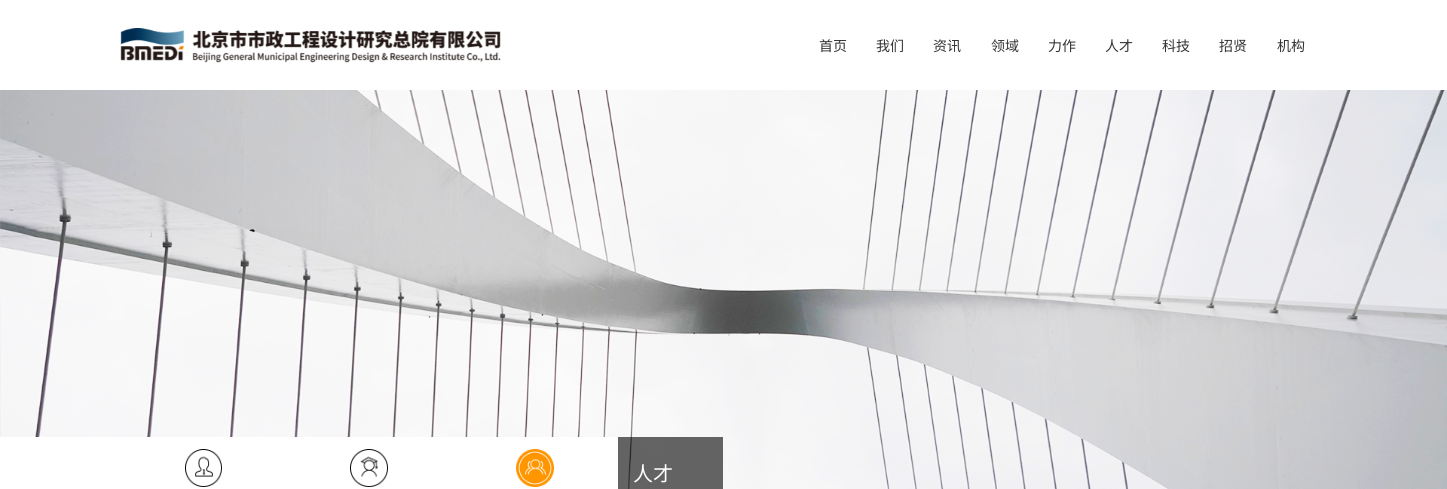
#include <cairo.h>
#include <math.h>
#include <stddef.h>


static void picture(cairo_t *cr, const char *path, double x, double y, double w, double h) {
    cairo_surface_t *image = cairo_image_surface_create_from_png(path);
    cairo_save(cr);
    cairo_set_source_surface(cr, image, x, y);
    cairo_rectangle(cr, x, y, w, h);
    cairo_fill(cr);
    cairo_restore(cr);
    cairo_surface_destroy(image);
}

int main(void) {
    cairo_surface_t *surface = cairo_image_surface_create(CAIRO_FORMAT_RGB24, 1447, 489);
    cairo_t *cr = cairo_create(surface);
    cairo_font_options_t *options = cairo_font_options_create();
    cairo_font_options_set_hint_metrics(options, CAIRO_HINT_METRICS_OFF);
    cairo_font_options_set_hint_style(options, CAIRO_HINT_STYLE_NONE);
    cairo_set_font_options(cr, options);
    cairo_set_miter_limit(cr, 4);
    cairo_set_source_rgb(cr, 1, 1, 1);
    cairo_paint(cr);
    picture(cr, "img1.png", 120, 28, 381, 35);
    cairo_select_font_face(cr, "Noto Sans SC", CAIRO_FONT_SLANT_NORMAL, CAIRO_FONT_WEIGHT_NORMAL);
    cairo_set_font_size(cr, 14);
    cairo_set_source_rgb(cr, 0.2, 0.2, 0.2);
    cairo_move_to(cr, 819, 51);
    cairo_show_text(cr, "首页");
    cairo_move_to(cr, 876, 51);
    cairo_show_text(cr, "我们");
    cairo_move_to(cr, 933, 51);
    cairo_show_text(cr, "资讯");
    cairo_move_to(cr, 991, 51);
    cairo_show_text(cr, "领域");
    cairo_move_to(cr, 1048, 51);
    cairo_show_text(cr, "力作");
    cairo_move_to(cr, 1105, 51);
    cairo_show_text(cr, "人才");
    cairo_move_to(cr, 1162, 51);
    cairo_show_text(cr, "科技");
    cairo_move_to(cr, 1219, 51);
    cairo_show_text(cr, "招贤");
    cairo_move_to(cr, 1277, 51);
    cairo_show_text(cr, "机构");
    picture(cr, "img2.png", 0, 90, 1447, 399);
    cairo_set_source_rgb(cr, 1, 1, 1);
    cairo_rectangle(cr, 0, 437, 618, 52);
    cairo_fill(cr);
    picture(cr, "img3.png", 185, 449, 37, 38);
    picture(cr, "img4.png", 350, 449, 38, 38);
    picture(cr, "img5.png", 516, 449, 38, 38);
    cairo_set_source_rgba(cr, 0, 0, 0, 0.6);
    cairo_rectangle(cr, 618, 437, 105, 52);
    cairo_fill(cr);
    cairo_set_font_size(cr, 20);
    cairo_set_source_rgb(cr, 1, 1, 1);
    cairo_move_to(cr, 633, 481);
    cairo_show_text(cr, "人才");
    cairo_surface_write_to_png(surface, "page.png");
    cairo_font_options_destroy(options);
    cairo_destroy(cr);
    cairo_surface_destroy(surface);
    return 0;
}
